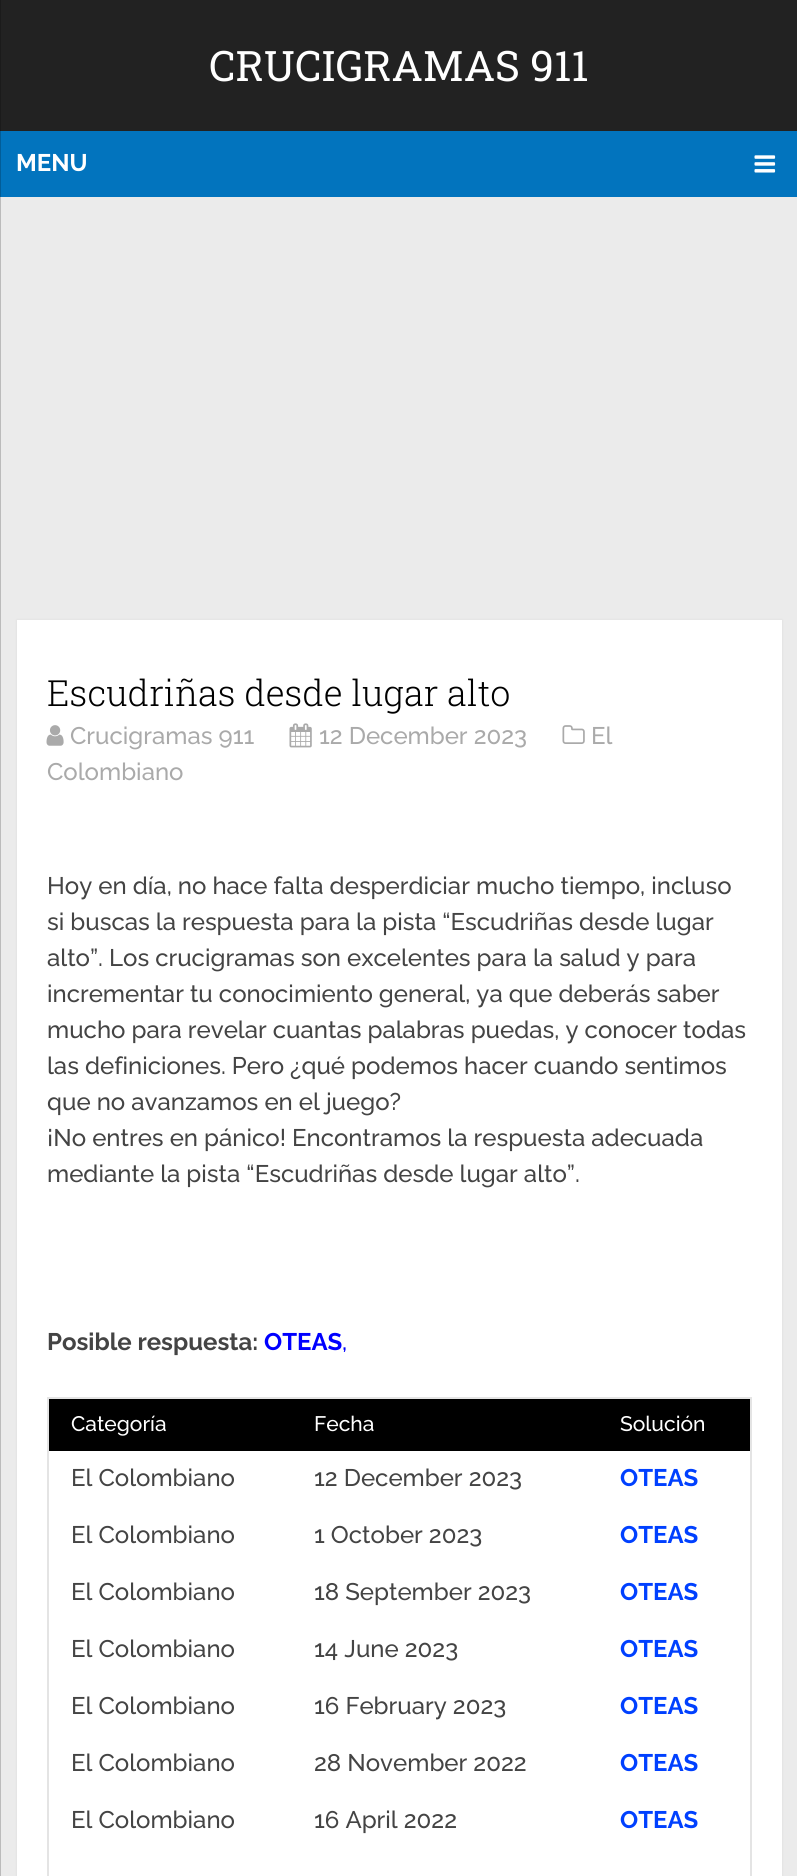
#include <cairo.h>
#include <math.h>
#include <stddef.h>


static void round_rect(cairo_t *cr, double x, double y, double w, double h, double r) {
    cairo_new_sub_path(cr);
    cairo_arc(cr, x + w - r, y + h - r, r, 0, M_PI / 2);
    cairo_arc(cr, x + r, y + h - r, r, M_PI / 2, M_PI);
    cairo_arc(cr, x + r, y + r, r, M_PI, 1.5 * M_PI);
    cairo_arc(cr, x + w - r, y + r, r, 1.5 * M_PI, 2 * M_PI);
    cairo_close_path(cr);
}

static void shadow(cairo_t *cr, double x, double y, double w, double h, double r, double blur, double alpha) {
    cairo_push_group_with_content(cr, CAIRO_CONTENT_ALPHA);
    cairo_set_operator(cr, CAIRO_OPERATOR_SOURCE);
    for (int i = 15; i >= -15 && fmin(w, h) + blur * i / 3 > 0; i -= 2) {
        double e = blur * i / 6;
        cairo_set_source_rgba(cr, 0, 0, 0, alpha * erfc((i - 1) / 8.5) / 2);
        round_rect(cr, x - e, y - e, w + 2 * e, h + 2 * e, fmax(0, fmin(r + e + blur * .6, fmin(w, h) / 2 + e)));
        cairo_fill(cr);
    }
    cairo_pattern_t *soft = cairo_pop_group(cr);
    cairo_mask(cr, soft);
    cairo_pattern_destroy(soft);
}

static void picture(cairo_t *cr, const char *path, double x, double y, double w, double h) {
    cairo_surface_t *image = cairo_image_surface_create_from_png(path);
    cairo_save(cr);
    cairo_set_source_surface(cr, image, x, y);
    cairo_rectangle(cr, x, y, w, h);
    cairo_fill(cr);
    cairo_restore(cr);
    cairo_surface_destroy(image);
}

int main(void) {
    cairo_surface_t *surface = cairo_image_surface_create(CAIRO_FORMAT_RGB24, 797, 1876);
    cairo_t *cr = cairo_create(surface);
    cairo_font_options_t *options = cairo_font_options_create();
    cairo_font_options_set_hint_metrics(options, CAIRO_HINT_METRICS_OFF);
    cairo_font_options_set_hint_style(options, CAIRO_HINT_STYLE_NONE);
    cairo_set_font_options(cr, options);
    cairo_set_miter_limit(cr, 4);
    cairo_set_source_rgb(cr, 0.918, 0.918, 0.918);
    cairo_paint(cr);
    cairo_set_source_rgb(cr, 0.733, 0.733, 0.733);
    cairo_rectangle(cr, 0, 197, 1, 1679);
    cairo_fill(cr);
    cairo_set_source_rgb(cr, 0.133, 0.133, 0.133);
    cairo_rectangle(cr, 1, 0, 796, 131);
    cairo_fill(cr);
    cairo_set_source_rgb(cr, 0.106, 0.106, 0.106);
    cairo_rectangle(cr, 0, 0, 1, 131);
    cairo_fill(cr);
    cairo_select_font_face(cr, "Roboto Slab", CAIRO_FONT_SLANT_NORMAL, CAIRO_FONT_WEIGHT_NORMAL);
    cairo_set_font_size(cr, 42);
    cairo_set_source_rgb(cr, 1, 1, 1);
    cairo_move_to(cr, 209, 81);
    cairo_show_text(cr, "CRUCIGRAMAS 911");
    cairo_set_source_rgb(cr, 0.008, 0.455, 0.745);
    cairo_rectangle(cr, 1, 131, 796, 66);
    cairo_fill(cr);
    cairo_set_source_rgb(cr, 0.008, 0.365, 0.596);
    cairo_rectangle(cr, 0, 131, 1, 66);
    cairo_fill(cr);
    cairo_select_font_face(cr, "Raleway", CAIRO_FONT_SLANT_NORMAL, CAIRO_FONT_WEIGHT_BOLD);
    cairo_set_font_size(cr, 24);
    cairo_set_source_rgb(cr, 1, 1, 1);
    cairo_move_to(cr, 16, 171);
    cairo_show_text(cr, "MENU");
    picture(cr, "img1.png", 754, 155, 22, 18);
    cairo_set_source_rgb(cr, 0.196, 0.196, 0.196);
    shadow(cr, 17, 620, 765, 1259, 0, 1, 0.1);
    cairo_set_source_rgb(cr, 1, 1, 1);
    cairo_rectangle(cr, 17, 620, 765, 1256);
    cairo_fill(cr);
    cairo_select_font_face(cr, "Roboto Slab Light", CAIRO_FONT_SLANT_NORMAL, CAIRO_FONT_WEIGHT_NORMAL);
    cairo_set_font_size(cr, 36);
    cairo_set_source_rgb(cr, 0, 0, 0);
    cairo_move_to(cr, 47, 706);
    cairo_show_text(cr, "Escudriñas desde lugar alto");
    picture(cr, "img2.png", 562, 725, 23, 19);
    cairo_select_font_face(cr, "Raleway Medium", CAIRO_FONT_SLANT_NORMAL, CAIRO_FONT_WEIGHT_NORMAL);
    cairo_set_font_size(cr, 24);
    cairo_set_source_rgb(cr, 0.667, 0.667, 0.667);
    cairo_move_to(cr, 591, 744);
    cairo_show_text(cr, "El");
    cairo_move_to(cr, 47, 780);
    cairo_show_text(cr, "Colombiano");
    picture(cr, "img3.png", 46, 725, 18, 21);
    cairo_move_to(cr, 70, 744);
    cairo_show_text(cr, "Crucigramas 911");
    picture(cr, "img4.png", 289, 723, 23, 25);
    cairo_move_to(cr, 319, 744);
    cairo_show_text(cr, "12 December 2023");
    cairo_set_source_rgb(cr, 0.267, 0.267, 0.267);
    cairo_move_to(cr, 47, 894);
    cairo_show_text(cr, "Hoy en día, no hace falta desperdiciar mucho tiempo, incluso");
    cairo_move_to(cr, 47, 930);
    cairo_show_text(cr, "si buscas la respuesta para la pista “Escudriñas desde lugar");
    cairo_move_to(cr, 47, 966);
    cairo_show_text(cr, "alto”. Los crucigramas son excelentes para la salud y para");
    cairo_move_to(cr, 47, 1002);
    cairo_show_text(cr, "incrementar tu conocimiento general, ya que deberás saber");
    cairo_move_to(cr, 47, 1038);
    cairo_show_text(cr, "mucho para revelar cuantas palabras puedas, y conocer todas");
    cairo_move_to(cr, 47, 1074);
    cairo_show_text(cr, "las definiciones. Pero ¿qué podemos hacer cuando sentimos");
    cairo_move_to(cr, 47, 1110);
    cairo_show_text(cr, "que no avanzamos en el juego?");
    cairo_move_to(cr, 47, 1146);
    cairo_show_text(cr, "¡No entres en pánico! Encontramos la respuesta adecuada");
    cairo_move_to(cr, 47, 1182);
    cairo_show_text(cr, "mediante la pista “Escudriñas desde lugar alto”.");
    cairo_select_font_face(cr, "Raleway", CAIRO_FONT_SLANT_NORMAL, CAIRO_FONT_WEIGHT_BOLD);
    cairo_move_to(cr, 47, 1350);
    cairo_show_text(cr, "Posible respuesta:");
    cairo_set_source_rgb(cr, 0, 0, 1);
    cairo_move_to(cr, 264, 1350);
    cairo_show_text(cr, "OTEAS");
    cairo_select_font_face(cr, "Raleway Medium", CAIRO_FONT_SLANT_NORMAL, CAIRO_FONT_WEIGHT_NORMAL);
    cairo_move_to(cr, 342, 1350);
    cairo_show_text(cr, ",");
    cairo_set_source_rgb(cr, 0.894, 0.894, 0.894);
    cairo_rectangle(cr, 47, 1397, 705, 2);
    cairo_fill(cr);
    cairo_rectangle(cr, 750, 1397, 2, 479);
    cairo_fill(cr);
    cairo_rectangle(cr, 47, 1397, 2, 479);
    cairo_fill(cr);
    cairo_set_source_rgb(cr, 0, 0, 0);
    cairo_rectangle(cr, 49, 1399, 701, 52);
    cairo_fill(cr);
    cairo_set_font_size(cr, 21);
    cairo_set_source_rgb(cr, 1, 1, 1);
    cairo_move_to(cr, 71, 1431);
    cairo_show_text(cr, "Categoría");
    cairo_move_to(cr, 314, 1431);
    cairo_show_text(cr, "Fecha");
    cairo_move_to(cr, 620, 1431);
    cairo_show_text(cr, "Solución");
    cairo_set_font_size(cr, 24);
    cairo_set_source_rgb(cr, 0.267, 0.267, 0.267);
    cairo_move_to(cr, 71, 1486);
    cairo_show_text(cr, "El Colombiano");
    cairo_move_to(cr, 314, 1486);
    cairo_show_text(cr, "12 December 2023");
    cairo_select_font_face(cr, "Raleway", CAIRO_FONT_SLANT_NORMAL, CAIRO_FONT_WEIGHT_BOLD);
    cairo_set_source_rgb(cr, 0, 0.251, 1);
    cairo_move_to(cr, 620, 1486);
    cairo_show_text(cr, "OTEAS");
    cairo_select_font_face(cr, "Raleway Medium", CAIRO_FONT_SLANT_NORMAL, CAIRO_FONT_WEIGHT_NORMAL);
    cairo_set_source_rgb(cr, 0.267, 0.267, 0.267);
    cairo_move_to(cr, 71, 1543);
    cairo_show_text(cr, "El Colombiano");
    cairo_move_to(cr, 314, 1543);
    cairo_show_text(cr, "1 October 2023");
    cairo_select_font_face(cr, "Raleway", CAIRO_FONT_SLANT_NORMAL, CAIRO_FONT_WEIGHT_BOLD);
    cairo_set_source_rgb(cr, 0, 0.251, 1);
    cairo_move_to(cr, 620, 1543);
    cairo_show_text(cr, "OTEAS");
    cairo_select_font_face(cr, "Raleway Medium", CAIRO_FONT_SLANT_NORMAL, CAIRO_FONT_WEIGHT_NORMAL);
    cairo_set_source_rgb(cr, 0.267, 0.267, 0.267);
    cairo_move_to(cr, 71, 1600);
    cairo_show_text(cr, "El Colombiano");
    cairo_move_to(cr, 314, 1600);
    cairo_show_text(cr, "18 September 2023");
    cairo_select_font_face(cr, "Raleway", CAIRO_FONT_SLANT_NORMAL, CAIRO_FONT_WEIGHT_BOLD);
    cairo_set_source_rgb(cr, 0, 0.251, 1);
    cairo_move_to(cr, 620, 1600);
    cairo_show_text(cr, "OTEAS");
    cairo_select_font_face(cr, "Raleway Medium", CAIRO_FONT_SLANT_NORMAL, CAIRO_FONT_WEIGHT_NORMAL);
    cairo_set_source_rgb(cr, 0.267, 0.267, 0.267);
    cairo_move_to(cr, 71, 1657);
    cairo_show_text(cr, "El Colombiano");
    cairo_move_to(cr, 314, 1657);
    cairo_show_text(cr, "14 June 2023");
    cairo_select_font_face(cr, "Raleway", CAIRO_FONT_SLANT_NORMAL, CAIRO_FONT_WEIGHT_BOLD);
    cairo_set_source_rgb(cr, 0, 0.251, 1);
    cairo_move_to(cr, 620, 1657);
    cairo_show_text(cr, "OTEAS");
    cairo_select_font_face(cr, "Raleway Medium", CAIRO_FONT_SLANT_NORMAL, CAIRO_FONT_WEIGHT_NORMAL);
    cairo_set_source_rgb(cr, 0.267, 0.267, 0.267);
    cairo_move_to(cr, 71, 1714);
    cairo_show_text(cr, "El Colombiano");
    cairo_move_to(cr, 314, 1714);
    cairo_show_text(cr, "16 February 2023");
    cairo_select_font_face(cr, "Raleway", CAIRO_FONT_SLANT_NORMAL, CAIRO_FONT_WEIGHT_BOLD);
    cairo_set_source_rgb(cr, 0, 0.251, 1);
    cairo_move_to(cr, 620, 1714);
    cairo_show_text(cr, "OTEAS");
    cairo_select_font_face(cr, "Raleway Medium", CAIRO_FONT_SLANT_NORMAL, CAIRO_FONT_WEIGHT_NORMAL);
    cairo_set_source_rgb(cr, 0.267, 0.267, 0.267);
    cairo_move_to(cr, 71, 1771);
    cairo_show_text(cr, "El Colombiano");
    cairo_move_to(cr, 314, 1771);
    cairo_show_text(cr, "28 November 2022");
    cairo_select_font_face(cr, "Raleway", CAIRO_FONT_SLANT_NORMAL, CAIRO_FONT_WEIGHT_BOLD);
    cairo_set_source_rgb(cr, 0, 0.251, 1);
    cairo_move_to(cr, 620, 1771);
    cairo_show_text(cr, "OTEAS");
    cairo_select_font_face(cr, "Raleway Medium", CAIRO_FONT_SLANT_NORMAL, CAIRO_FONT_WEIGHT_NORMAL);
    cairo_set_source_rgb(cr, 0.267, 0.267, 0.267);
    cairo_move_to(cr, 71, 1828);
    cairo_show_text(cr, "El Colombiano");
    cairo_move_to(cr, 314, 1828);
    cairo_show_text(cr, "16 April 2022");
    cairo_select_font_face(cr, "Raleway", CAIRO_FONT_SLANT_NORMAL, CAIRO_FONT_WEIGHT_BOLD);
    cairo_set_source_rgb(cr, 0, 0.251, 1);
    cairo_move_to(cr, 620, 1828);
    cairo_show_text(cr, "OTEAS");
    cairo_surface_write_to_png(surface, "page.png");
    cairo_font_options_destroy(options);
    cairo_destroy(cr);
    cairo_surface_destroy(surface);
    return 0;
}
